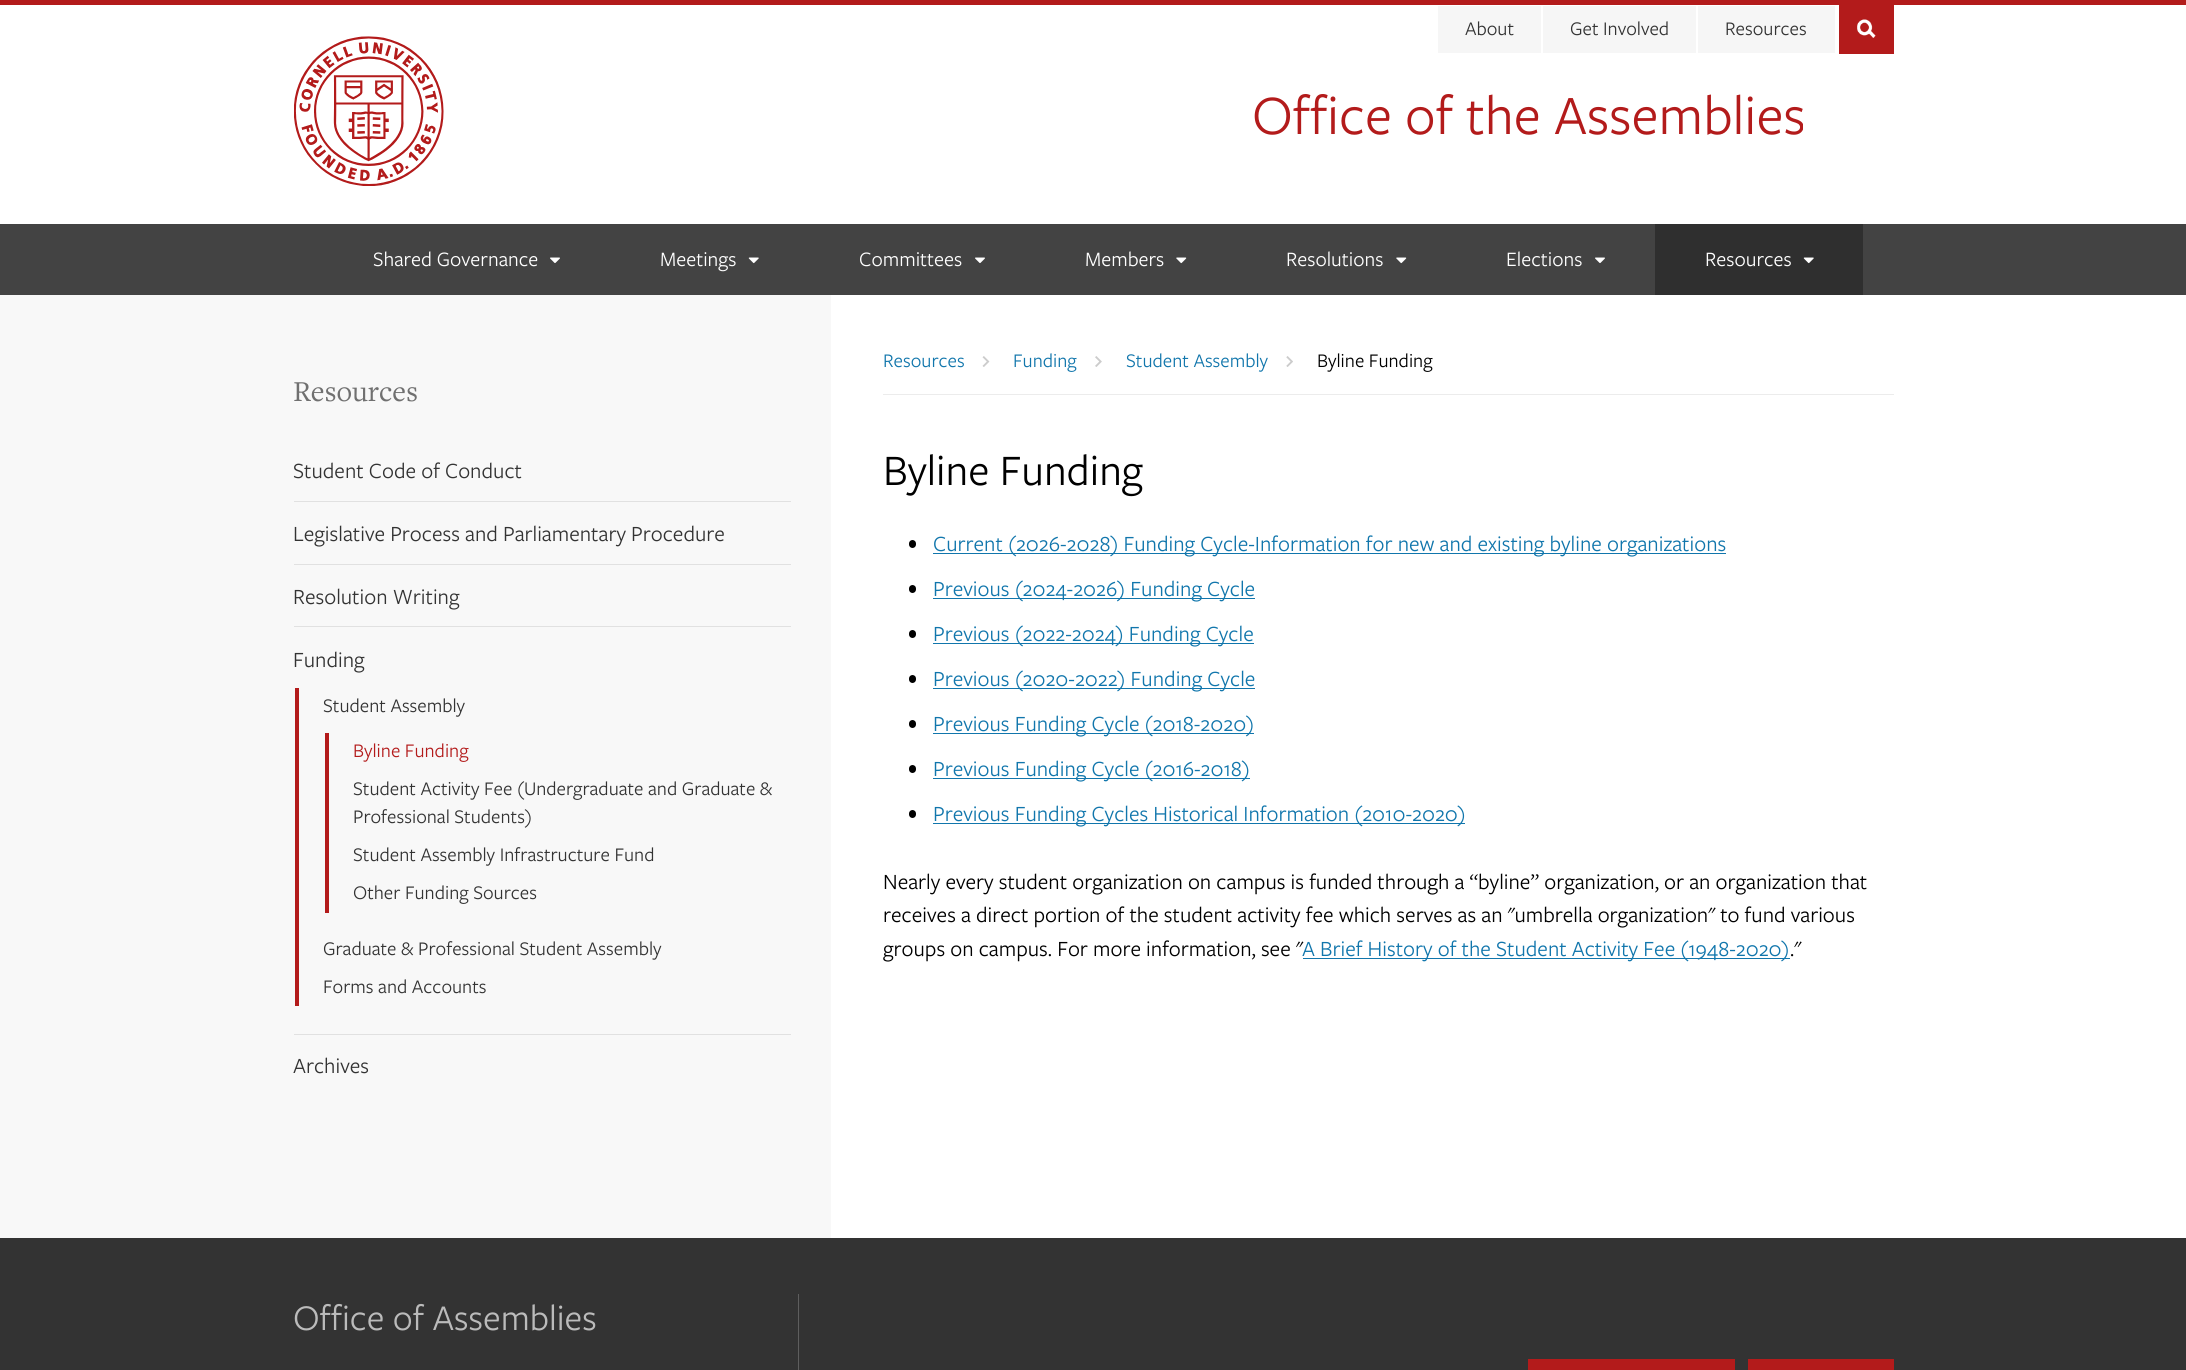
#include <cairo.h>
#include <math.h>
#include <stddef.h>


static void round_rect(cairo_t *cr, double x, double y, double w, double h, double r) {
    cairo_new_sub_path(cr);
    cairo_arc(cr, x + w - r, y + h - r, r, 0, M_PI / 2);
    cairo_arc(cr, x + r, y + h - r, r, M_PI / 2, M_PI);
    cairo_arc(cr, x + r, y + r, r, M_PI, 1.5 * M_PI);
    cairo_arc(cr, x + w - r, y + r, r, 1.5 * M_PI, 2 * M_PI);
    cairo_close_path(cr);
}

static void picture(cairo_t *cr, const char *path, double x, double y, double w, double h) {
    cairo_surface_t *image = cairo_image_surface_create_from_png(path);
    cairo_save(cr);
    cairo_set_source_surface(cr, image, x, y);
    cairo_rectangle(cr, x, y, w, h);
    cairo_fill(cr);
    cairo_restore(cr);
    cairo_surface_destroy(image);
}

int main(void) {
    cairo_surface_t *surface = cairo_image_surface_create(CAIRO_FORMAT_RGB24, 2186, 1370);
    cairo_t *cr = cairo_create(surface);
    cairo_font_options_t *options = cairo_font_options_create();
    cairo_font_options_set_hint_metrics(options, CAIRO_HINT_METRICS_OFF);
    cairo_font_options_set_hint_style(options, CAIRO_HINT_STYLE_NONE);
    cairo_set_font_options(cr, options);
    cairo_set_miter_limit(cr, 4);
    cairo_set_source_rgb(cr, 1, 1, 1);
    cairo_paint(cr);
    cairo_set_source_rgb(cr, 0.702, 0.106, 0.106);
    cairo_rectangle(cr, 0, 0, 2186, 5);
    cairo_fill(cr);
    cairo_set_source_rgb(cr, 0.961, 0.961, 0.961);
    cairo_rectangle(cr, 1438, 6, 103, 47);
    cairo_fill(cr);
    cairo_select_font_face(cr, "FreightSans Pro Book", CAIRO_FONT_SLANT_NORMAL, CAIRO_FONT_WEIGHT_NORMAL);
    cairo_set_font_size(cr, 20);
    cairo_set_source_rgb(cr, 0.2, 0.2, 0.2);
    cairo_move_to(cr, 1465, 35);
    cairo_show_text(cr, "About");
    cairo_set_source_rgb(cr, 0.961, 0.961, 0.961);
    cairo_rectangle(cr, 1543, 6, 153, 47);
    cairo_fill(cr);
    cairo_set_source_rgb(cr, 0.2, 0.2, 0.2);
    cairo_move_to(cr, 1570, 35);
    cairo_show_text(cr, "Get Involved");
    cairo_set_source_rgb(cr, 0.961, 0.961, 0.961);
    cairo_rectangle(cr, 1698, 6, 137, 47);
    cairo_fill(cr);
    cairo_set_source_rgb(cr, 0.2, 0.2, 0.2);
    cairo_move_to(cr, 1725, 35);
    cairo_show_text(cr, "Resources");
    cairo_set_source_rgb(cr, 0.702, 0.106, 0.106);
    cairo_rectangle(cr, 1839, 5, 55, 49);
    cairo_fill(cr);
    picture(cr, "img1.png", 1857, 19, 19, 19);
    picture(cr, "img2.png", 294, 36, 150, 150);
    cairo_set_font_size(cr, 57.5);
    cairo_move_to(cr, 1252, 134);
    cairo_show_text(cr, "Office of the Assemblies");
    cairo_set_source_rgb(cr, 0.263, 0.263, 0.263);
    cairo_rectangle(cr, 0, 224, 2186, 71);
    cairo_fill(cr);
    cairo_set_font_size(cr, 21.25);
    cairo_set_source_rgb(cr, 1, 1, 1);
    cairo_move_to(cr, 373, 266);
    cairo_show_text(cr, "Shared Governance");
    picture(cr, "img3.png", 550, 257, 10, 6);
    cairo_move_to(cr, 660, 266);
    cairo_show_text(cr, "Meetings");
    picture(cr, "img4.png", 748, 257, 11, 7);
    cairo_move_to(cr, 859, 266);
    cairo_show_text(cr, "Committees");
    picture(cr, "img3.png", 975, 257, 10, 6);
    cairo_move_to(cr, 1085, 266);
    cairo_show_text(cr, "Members");
    picture(cr, "img5.png", 1176, 257, 11, 7);
    cairo_move_to(cr, 1286, 266);
    cairo_show_text(cr, "Resolutions");
    picture(cr, "img5.png", 1396, 257, 11, 7);
    cairo_move_to(cr, 1506, 266);
    cairo_show_text(cr, "Elections");
    picture(cr, "img3.png", 1595, 257, 10, 6);
    cairo_set_source_rgb(cr, 0.184, 0.184, 0.184);
    cairo_rectangle(cr, 1655, 224, 208, 71);
    cairo_fill(cr);
    cairo_set_source_rgb(cr, 1, 1, 1);
    cairo_move_to(cr, 1705, 266);
    cairo_show_text(cr, "Resources");
    picture(cr, "img6.png", 1803, 257, 11, 7);
    cairo_set_source_rgb(cr, 0.969, 0.969, 0.969);
    cairo_rectangle(cr, 0, 295, 831, 943);
    cairo_fill(cr);
    cairo_select_font_face(cr, "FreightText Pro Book", CAIRO_FONT_SLANT_NORMAL, CAIRO_FONT_WEIGHT_NORMAL);
    cairo_set_font_size(cr, 30);
    cairo_set_source_rgb(cr, 0.439, 0.439, 0.439);
    cairo_move_to(cr, 293, 401);
    cairo_show_text(cr, "Resources");
    cairo_set_source_rgb(cr, 0.882, 0.882, 0.882);
    cairo_rectangle(cr, 294, 501, 497, 1);
    cairo_fill(cr);
    cairo_select_font_face(cr, "FreightSans Pro Book", CAIRO_FONT_SLANT_NORMAL, CAIRO_FONT_WEIGHT_NORMAL);
    cairo_set_font_size(cr, 22.5);
    cairo_set_source_rgb(cr, 0.2, 0.2, 0.2);
    cairo_move_to(cr, 293, 478);
    cairo_show_text(cr, "Student Code of Conduct");
    cairo_set_source_rgb(cr, 0.882, 0.882, 0.882);
    cairo_rectangle(cr, 294, 564, 497, 1);
    cairo_fill(cr);
    cairo_set_source_rgb(cr, 0.2, 0.2, 0.2);
    cairo_move_to(cr, 293, 541);
    cairo_show_text(cr, "Legislative Process and Parliamentary Procedure");
    cairo_set_source_rgb(cr, 0.882, 0.882, 0.882);
    cairo_rectangle(cr, 294, 626, 497, 1);
    cairo_fill(cr);
    cairo_set_source_rgb(cr, 0.2, 0.2, 0.2);
    cairo_move_to(cr, 293, 604);
    cairo_show_text(cr, "Resolution Writing");
    cairo_set_source_rgb(cr, 0.882, 0.882, 0.882);
    cairo_rectangle(cr, 294, 1034, 497, 1);
    cairo_fill(cr);
    cairo_set_source_rgb(cr, 0.2, 0.2, 0.2);
    cairo_move_to(cr, 293, 667);
    cairo_show_text(cr, "Funding");
    cairo_set_source_rgb(cr, 0.702, 0.106, 0.106);
    cairo_rectangle(cr, 295, 688, 4, 318);
    cairo_fill(cr);
    cairo_set_font_size(cr, 20);
    cairo_set_source_rgb(cr, 0.2, 0.2, 0.2);
    cairo_move_to(cr, 323, 712);
    cairo_show_text(cr, "Student Assembly");
    cairo_set_source_rgb(cr, 0.702, 0.106, 0.106);
    cairo_rectangle(cr, 325, 733, 4, 180);
    cairo_fill(cr);
    cairo_move_to(cr, 353, 757);
    cairo_show_text(cr, "Byline Funding");
    cairo_set_source_rgb(cr, 0.2, 0.2, 0.2);
    cairo_move_to(cr, 353, 795);
    cairo_show_text(cr, "Student Activity Fee (Undergraduate and Graduate &");
    cairo_move_to(cr, 353, 823);
    cairo_show_text(cr, "Professional Students)");
    cairo_move_to(cr, 353, 861);
    cairo_show_text(cr, "Student Assembly Infrastructure Fund");
    cairo_move_to(cr, 353, 899);
    cairo_show_text(cr, "Other Funding Sources");
    cairo_move_to(cr, 323, 955);
    cairo_show_text(cr, "Graduate & Professional Student Assembly");
    cairo_move_to(cr, 323, 993);
    cairo_show_text(cr, "Forms and Accounts");
    cairo_set_font_size(cr, 22.5);
    cairo_move_to(cr, 293, 1073);
    cairo_show_text(cr, "Archives");
    cairo_set_source_rgb(cr, 0.922, 0.922, 0.922);
    cairo_rectangle(cr, 883, 394, 1011, 1);
    cairo_fill(cr);
    cairo_set_font_size(cr, 20);
    cairo_set_source_rgb(cr, 0.067, 0.463, 0.675);
    cairo_move_to(cr, 883, 367);
    cairo_show_text(cr, "Resources");
    picture(cr, "img7.png", 982, 356, 8, 11);
    cairo_move_to(cr, 1013, 367);
    cairo_show_text(cr, "Funding");
    picture(cr, "img8.png", 1095, 356, 7, 11);
    cairo_move_to(cr, 1126, 367);
    cairo_show_text(cr, "Student Assembly");
    picture(cr, "img9.png", 1286, 356, 7, 11);
    cairo_set_source_rgb(cr, 0, 0, 0);
    cairo_move_to(cr, 1317, 367);
    cairo_show_text(cr, "Byline Funding");
    cairo_set_font_size(cr, 45);
    cairo_move_to(cr, 883, 485);
    cairo_show_text(cr, "Byline Funding");
    round_rect(cr, 909, 540, 7, 8, 3.5);
    cairo_fill(cr);
    cairo_set_source_rgb(cr, 0.067, 0.463, 0.675);
    cairo_rectangle(cr, 933, 553, 793, 1);
    cairo_fill(cr);
    cairo_set_font_size(cr, 22.5);
    cairo_move_to(cr, 933, 551);
    cairo_show_text(cr, "Current (2026-2028) Funding Cycle-Information for new and existing byline organizations");
    cairo_set_source_rgb(cr, 0, 0, 0);
    round_rect(cr, 909, 585, 7, 8, 3.5);
    cairo_fill(cr);
    cairo_set_source_rgb(cr, 0.067, 0.463, 0.675);
    cairo_rectangle(cr, 933, 598, 322, 1);
    cairo_fill(cr);
    cairo_move_to(cr, 933, 596);
    cairo_show_text(cr, "Previous (2024-2026) Funding Cycle");
    cairo_set_source_rgb(cr, 0, 0, 0);
    round_rect(cr, 909, 630, 7, 8, 3.5);
    cairo_fill(cr);
    cairo_set_source_rgb(cr, 0.067, 0.463, 0.675);
    cairo_rectangle(cr, 933, 643, 321, 1);
    cairo_fill(cr);
    cairo_move_to(cr, 933, 641);
    cairo_show_text(cr, "Previous (2022-2024) Funding Cycle");
    cairo_set_source_rgb(cr, 0, 0, 0);
    round_rect(cr, 909, 675, 7, 8, 3.5);
    cairo_fill(cr);
    cairo_set_source_rgb(cr, 0.067, 0.463, 0.675);
    cairo_rectangle(cr, 933, 688, 322, 1);
    cairo_fill(cr);
    cairo_move_to(cr, 933, 686);
    cairo_show_text(cr, "Previous (2020-2022) Funding Cycle");
    cairo_set_source_rgb(cr, 0, 0, 0);
    round_rect(cr, 909, 720, 7, 8, 3.5);
    cairo_fill(cr);
    cairo_set_source_rgb(cr, 0.067, 0.463, 0.675);
    cairo_rectangle(cr, 933, 733, 321, 1);
    cairo_fill(cr);
    cairo_move_to(cr, 933, 731);
    cairo_show_text(cr, "Previous Funding Cycle (2018-2020)");
    cairo_set_source_rgb(cr, 0, 0, 0);
    round_rect(cr, 909, 765, 7, 8, 3.5);
    cairo_fill(cr);
    cairo_set_source_rgb(cr, 0.067, 0.463, 0.675);
    cairo_rectangle(cr, 933, 778, 317, 1);
    cairo_fill(cr);
    cairo_move_to(cr, 933, 776);
    cairo_show_text(cr, "Previous Funding Cycle (2016-2018)");
    cairo_set_source_rgb(cr, 0, 0, 0);
    round_rect(cr, 909, 810, 7, 8, 3.5);
    cairo_fill(cr);
    cairo_set_source_rgb(cr, 0.067, 0.463, 0.675);
    cairo_rectangle(cr, 933, 823, 532, 1);
    cairo_fill(cr);
    cairo_move_to(cr, 933, 821);
    cairo_show_text(cr, "Previous Funding Cycles Historical Information (2010-2020)");
    cairo_set_source_rgb(cr, 0, 0, 0);
    cairo_move_to(cr, 883, 889);
    cairo_show_text(cr, "Nearly every student organization on campus is funded through a “byline” organization, or an organization that");
    cairo_move_to(cr, 883, 922);
    cairo_show_text(cr, "receives a direct portion of the student activity fee which serves as an \"umbrella organization\" to fund various");
    cairo_move_to(cr, 883, 956);
    cairo_show_text(cr, "groups on campus. For more information, see \"");
    cairo_set_source_rgb(cr, 0.067, 0.463, 0.675);
    cairo_rectangle(cr, 1303, 958, 487, 1);
    cairo_fill(cr);
    cairo_move_to(cr, 1302, 956);
    cairo_show_text(cr, "A Brief History of the Student Activity Fee (1948-2020)");
    cairo_set_source_rgb(cr, 0, 0, 0);
    cairo_move_to(cr, 1790, 956);
    cairo_show_text(cr, ".\"");
    cairo_set_source_rgb(cr, 0.2, 0.2, 0.2);
    cairo_rectangle(cr, 0, 1238, 2186, 132);
    cairo_fill(cr);
    cairo_set_font_size(cr, 37.5);
    cairo_set_source_rgb(cr, 0.733, 0.733, 0.733);
    cairo_move_to(cr, 293, 1330);
    cairo_show_text(cr, "Office of Assemblies");
    cairo_set_source_rgb(cr, 0.702, 0.106, 0.106);
    cairo_rectangle(cr, 1528, 1359, 207, 11);
    cairo_fill(cr);
    cairo_rectangle(cr, 1748, 1359, 146, 11);
    cairo_fill(cr);
    cairo_set_source_rgb(cr, 0.369, 0.369, 0.369);
    cairo_rectangle(cr, 798, 1294, 1, 76);
    cairo_fill(cr);
    cairo_surface_write_to_png(surface, "page.png");
    cairo_font_options_destroy(options);
    cairo_destroy(cr);
    cairo_surface_destroy(surface);
    return 0;
}
